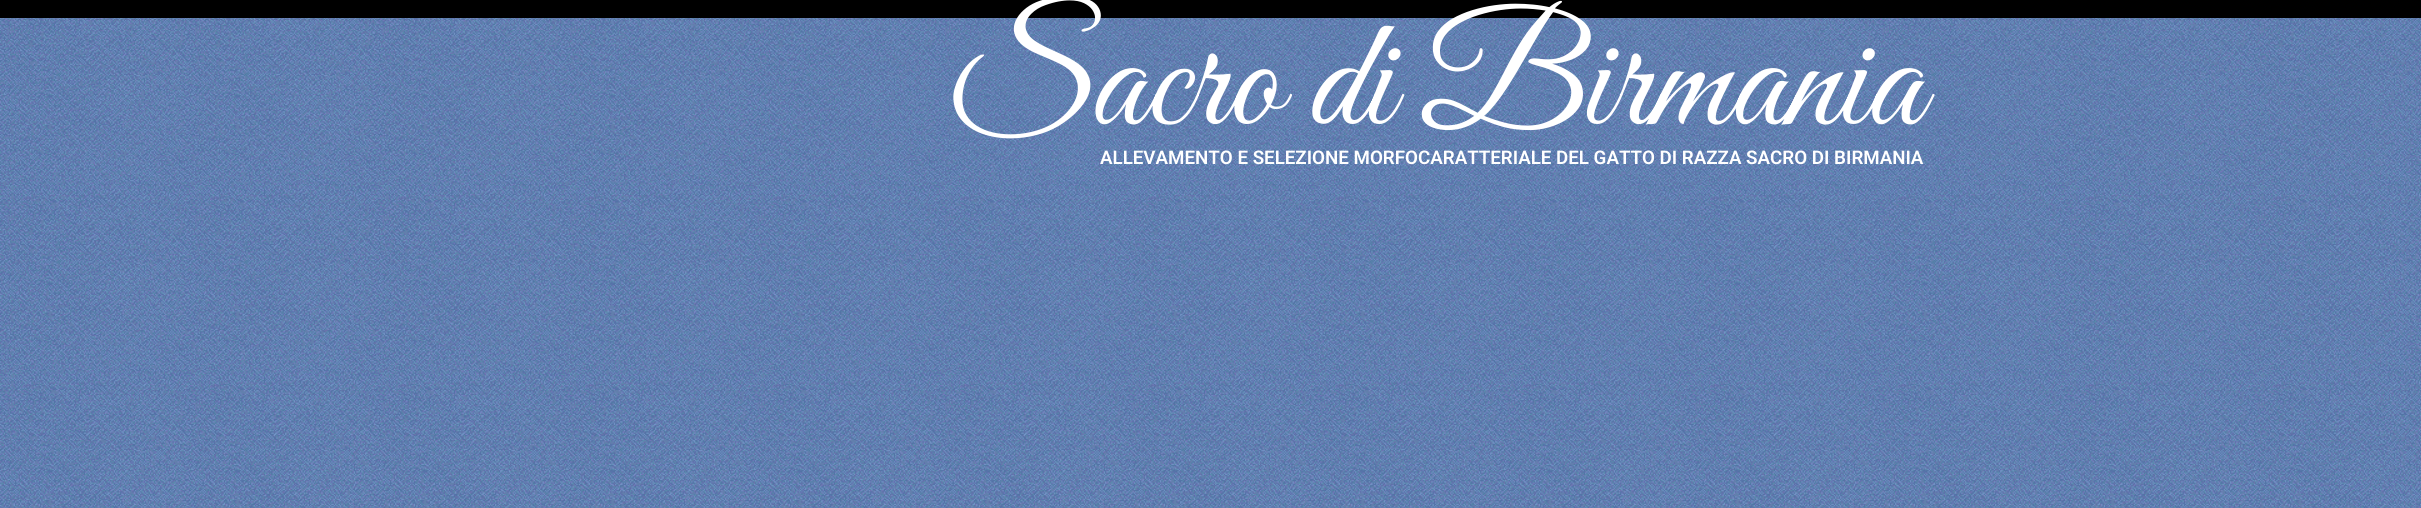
#include <cairo.h>
#include <math.h>
#include <stddef.h>


static void picture(cairo_t *cr, const char *path, double x, double y, double w, double h) {
    cairo_surface_t *image = cairo_image_surface_create_from_png(path);
    cairo_save(cr);
    cairo_set_source_surface(cr, image, x, y);
    cairo_rectangle(cr, x, y, w, h);
    cairo_fill(cr);
    cairo_restore(cr);
    cairo_surface_destroy(image);
}

int main(void) {
    cairo_surface_t *surface = cairo_image_surface_create(CAIRO_FORMAT_RGB24, 2421, 508);
    cairo_t *cr = cairo_create(surface);
    cairo_font_options_t *options = cairo_font_options_create();
    cairo_font_options_set_hint_metrics(options, CAIRO_HINT_METRICS_OFF);
    cairo_font_options_set_hint_style(options, CAIRO_HINT_STYLE_NONE);
    cairo_set_font_options(cr, options);
    cairo_set_miter_limit(cr, 4);
    cairo_set_source_rgb(cr, 1, 1, 1);
    cairo_paint(cr);
    picture(cr, "img1.png", 0, 18, 2421, 490);
    cairo_set_source_rgb(cr, 0, 0, 0);
    cairo_rectangle(cr, 0, 0, 2421, 18);
    cairo_fill(cr);
    cairo_select_font_face(cr, "Great Vibes", CAIRO_FONT_SLANT_NORMAL, CAIRO_FONT_WEIGHT_NORMAL);
    cairo_set_font_size(cr, 156.25);
    cairo_set_source_rgb(cr, 1, 1, 1);
    cairo_move_to(cr, 946, 124);
    cairo_show_text(cr, "Sacro di Birmania");
    cairo_select_font_face(cr, "Roboto SemiBold", CAIRO_FONT_SLANT_NORMAL, CAIRO_FONT_WEIGHT_NORMAL);
    cairo_set_font_size(cr, 18.75);
    cairo_move_to(cr, 1100, 164);
    cairo_show_text(cr, "ALLEVAMENTO E SELEZIONE MORFOCARATTERIALE DEL GATTO DI RAZZA SACRO DI BIRMANIA");
    cairo_surface_write_to_png(surface, "page.png");
    cairo_font_options_destroy(options);
    cairo_destroy(cr);
    cairo_surface_destroy(surface);
    return 0;
}
